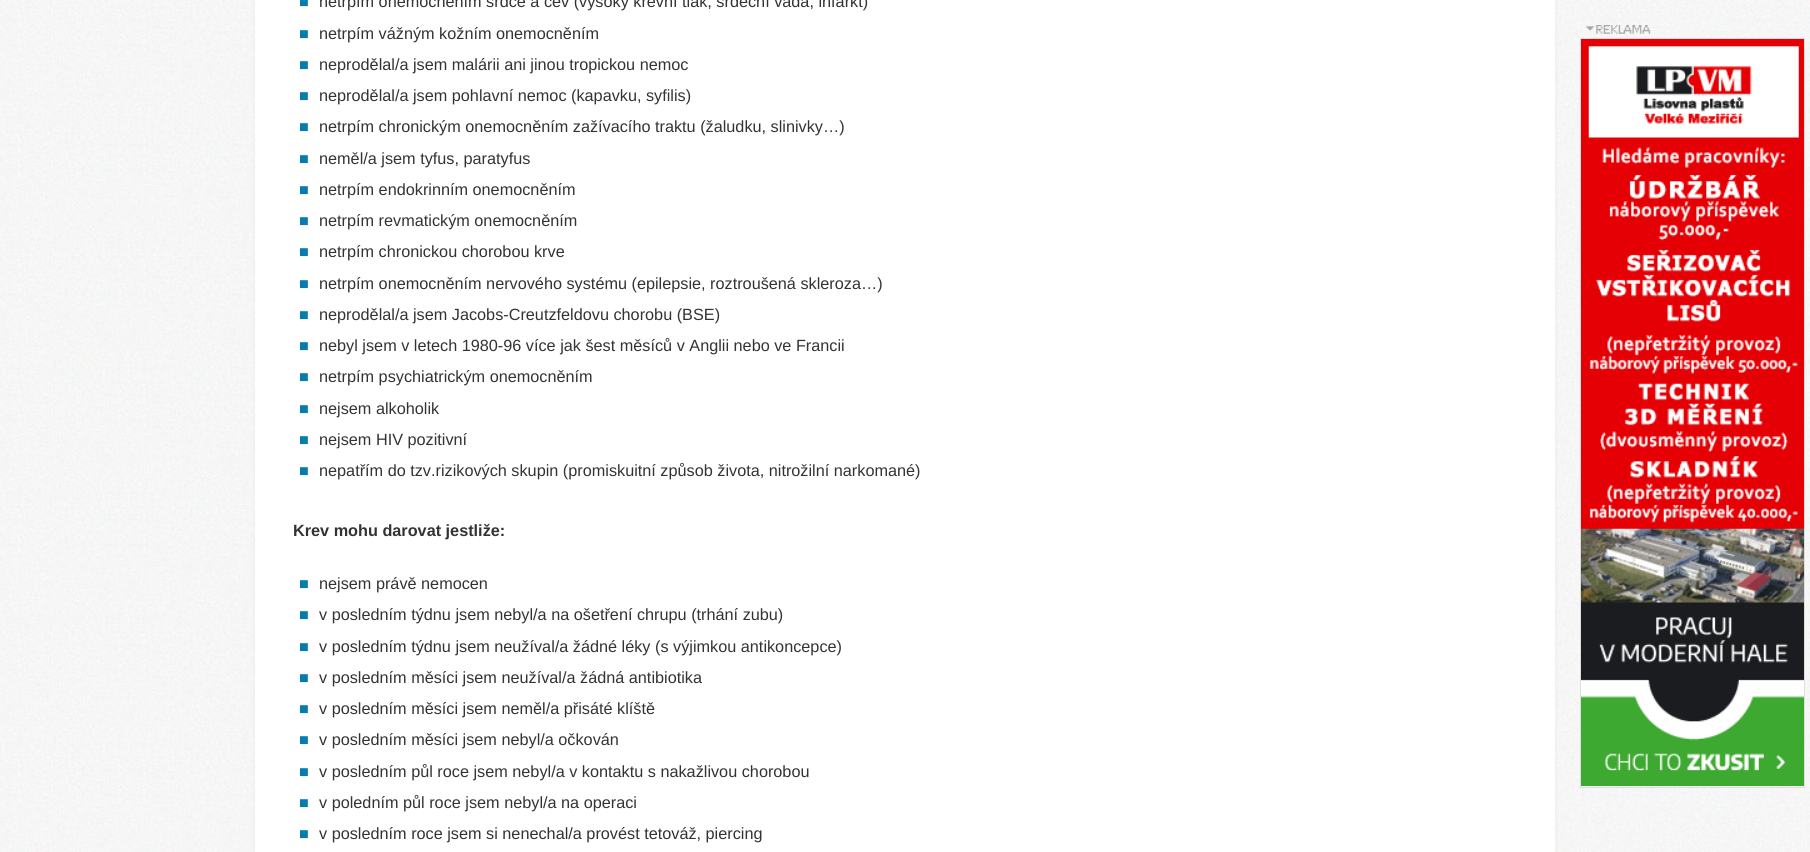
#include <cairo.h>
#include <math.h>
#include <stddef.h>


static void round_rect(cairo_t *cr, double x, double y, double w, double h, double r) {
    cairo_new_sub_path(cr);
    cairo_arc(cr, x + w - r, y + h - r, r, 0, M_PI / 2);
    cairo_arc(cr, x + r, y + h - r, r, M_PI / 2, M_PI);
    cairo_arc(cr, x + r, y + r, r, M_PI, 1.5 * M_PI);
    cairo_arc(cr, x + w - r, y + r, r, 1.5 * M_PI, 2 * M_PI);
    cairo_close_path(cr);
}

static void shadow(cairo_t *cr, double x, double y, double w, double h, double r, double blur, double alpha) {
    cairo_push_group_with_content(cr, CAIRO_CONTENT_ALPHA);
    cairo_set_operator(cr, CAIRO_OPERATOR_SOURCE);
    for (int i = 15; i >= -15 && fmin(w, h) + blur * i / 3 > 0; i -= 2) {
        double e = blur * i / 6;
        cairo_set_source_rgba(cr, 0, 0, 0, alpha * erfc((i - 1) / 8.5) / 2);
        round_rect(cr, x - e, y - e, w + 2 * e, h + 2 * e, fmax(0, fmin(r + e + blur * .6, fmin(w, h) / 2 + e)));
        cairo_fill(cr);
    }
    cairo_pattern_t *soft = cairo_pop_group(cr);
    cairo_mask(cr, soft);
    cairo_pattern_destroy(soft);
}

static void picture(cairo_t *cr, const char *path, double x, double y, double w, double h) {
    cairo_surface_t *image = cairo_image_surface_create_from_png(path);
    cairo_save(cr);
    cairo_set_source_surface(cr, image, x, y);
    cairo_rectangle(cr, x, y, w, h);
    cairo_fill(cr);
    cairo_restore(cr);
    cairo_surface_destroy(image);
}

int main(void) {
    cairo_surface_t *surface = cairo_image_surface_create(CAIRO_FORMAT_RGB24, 1810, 852);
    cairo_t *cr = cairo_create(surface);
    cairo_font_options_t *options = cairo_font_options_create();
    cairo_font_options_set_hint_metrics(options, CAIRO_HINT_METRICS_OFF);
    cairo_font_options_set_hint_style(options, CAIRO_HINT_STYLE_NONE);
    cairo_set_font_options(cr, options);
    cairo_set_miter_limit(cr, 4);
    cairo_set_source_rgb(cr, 1, 1, 1);
    cairo_paint(cr);
    picture(cr, "img1.png", 0, 0, 1810, 852);
    cairo_set_source_rgb(cr, 0.91, 0.91, 0.91);
    shadow(cr, 255, -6, 1300, 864, 0, 2, 1);
    cairo_set_source_rgb(cr, 1, 1, 1);
    cairo_rectangle(cr, 255, 0, 1300, 852);
    cairo_fill(cr);
    cairo_select_font_face(cr, "Liberation Sans", CAIRO_FONT_SLANT_NORMAL, CAIRO_FONT_WEIGHT_NORMAL);
    cairo_set_font_size(cr, 16.25);
    cairo_set_source_rgb(cr, 0.027, 0.486, 0.682);
    cairo_move_to(cr, 299, 7);
    cairo_show_text(cr, "■");
    cairo_set_source_rgb(cr, 0.2, 0.2, 0.2);
    cairo_move_to(cr, 319, 7);
    cairo_show_text(cr, "netrpím onemocněním srdce a cév (vysoký krevní tlak, srdeční vada, infarkt)");
    cairo_set_source_rgb(cr, 0.027, 0.486, 0.682);
    cairo_move_to(cr, 299, 39);
    cairo_show_text(cr, "■");
    cairo_set_source_rgb(cr, 0.2, 0.2, 0.2);
    cairo_move_to(cr, 319, 39);
    cairo_show_text(cr, "netrpím vážným kožním onemocněním");
    cairo_set_source_rgb(cr, 0.027, 0.486, 0.682);
    cairo_move_to(cr, 299, 70);
    cairo_show_text(cr, "■");
    cairo_set_source_rgb(cr, 0.2, 0.2, 0.2);
    cairo_move_to(cr, 319, 70);
    cairo_show_text(cr, "neprodělal/a jsem malárii ani jinou tropickou nemoc");
    cairo_set_source_rgb(cr, 0.027, 0.486, 0.682);
    cairo_move_to(cr, 299, 101);
    cairo_show_text(cr, "■");
    cairo_set_source_rgb(cr, 0.2, 0.2, 0.2);
    cairo_move_to(cr, 319, 101);
    cairo_show_text(cr, "neprodělal/a jsem pohlavní nemoc (kapavku, syfilis)");
    cairo_set_source_rgb(cr, 0.027, 0.486, 0.682);
    cairo_move_to(cr, 299, 132);
    cairo_show_text(cr, "■");
    cairo_set_source_rgb(cr, 0.2, 0.2, 0.2);
    cairo_move_to(cr, 319, 132);
    cairo_show_text(cr, "netrpím chronickým onemocněním zažívacího traktu (žaludku, slinivky…)");
    cairo_set_source_rgb(cr, 0.027, 0.486, 0.682);
    cairo_move_to(cr, 299, 164);
    cairo_show_text(cr, "■");
    cairo_set_source_rgb(cr, 0.2, 0.2, 0.2);
    cairo_move_to(cr, 319, 164);
    cairo_show_text(cr, "neměl/a jsem tyfus, paratyfus");
    cairo_set_source_rgb(cr, 0.027, 0.486, 0.682);
    cairo_move_to(cr, 299, 195);
    cairo_show_text(cr, "■");
    cairo_set_source_rgb(cr, 0.2, 0.2, 0.2);
    cairo_move_to(cr, 319, 195);
    cairo_show_text(cr, "netrpím endokrinním onemocněním");
    cairo_set_source_rgb(cr, 0.027, 0.486, 0.682);
    cairo_move_to(cr, 299, 226);
    cairo_show_text(cr, "■");
    cairo_set_source_rgb(cr, 0.2, 0.2, 0.2);
    cairo_move_to(cr, 319, 226);
    cairo_show_text(cr, "netrpím revmatickým onemocněním");
    cairo_set_source_rgb(cr, 0.027, 0.486, 0.682);
    cairo_move_to(cr, 299, 257);
    cairo_show_text(cr, "■");
    cairo_set_source_rgb(cr, 0.2, 0.2, 0.2);
    cairo_move_to(cr, 319, 257);
    cairo_show_text(cr, "netrpím chronickou chorobou krve");
    cairo_set_source_rgb(cr, 0.027, 0.486, 0.682);
    cairo_move_to(cr, 299, 289);
    cairo_show_text(cr, "■");
    cairo_set_source_rgb(cr, 0.2, 0.2, 0.2);
    cairo_move_to(cr, 319, 289);
    cairo_show_text(cr, "netrpím onemocněním nervového systému (epilepsie, roztroušená skleroza…)");
    cairo_set_source_rgb(cr, 0.027, 0.486, 0.682);
    cairo_move_to(cr, 299, 320);
    cairo_show_text(cr, "■");
    cairo_set_source_rgb(cr, 0.2, 0.2, 0.2);
    cairo_move_to(cr, 319, 320);
    cairo_show_text(cr, "neprodělal/a jsem Jacobs-Creutzfeldovu chorobu (BSE)");
    cairo_set_source_rgb(cr, 0.027, 0.486, 0.682);
    cairo_move_to(cr, 299, 351);
    cairo_show_text(cr, "■");
    cairo_set_source_rgb(cr, 0.2, 0.2, 0.2);
    cairo_move_to(cr, 319, 351);
    cairo_show_text(cr, "nebyl jsem v letech 1980-96 více jak šest měsíců v Anglii nebo ve Francii");
    cairo_set_source_rgb(cr, 0.027, 0.486, 0.682);
    cairo_move_to(cr, 299, 382);
    cairo_show_text(cr, "■");
    cairo_set_source_rgb(cr, 0.2, 0.2, 0.2);
    cairo_move_to(cr, 319, 382);
    cairo_show_text(cr, "netrpím psychiatrickým onemocněním");
    cairo_set_source_rgb(cr, 0.027, 0.486, 0.682);
    cairo_move_to(cr, 299, 414);
    cairo_show_text(cr, "■");
    cairo_set_source_rgb(cr, 0.2, 0.2, 0.2);
    cairo_move_to(cr, 319, 414);
    cairo_show_text(cr, "nejsem alkoholik");
    cairo_set_source_rgb(cr, 0.027, 0.486, 0.682);
    cairo_move_to(cr, 299, 445);
    cairo_show_text(cr, "■");
    cairo_set_source_rgb(cr, 0.2, 0.2, 0.2);
    cairo_move_to(cr, 319, 445);
    cairo_show_text(cr, "nejsem HIV pozitivní");
    cairo_set_source_rgb(cr, 0.027, 0.486, 0.682);
    cairo_move_to(cr, 299, 476);
    cairo_show_text(cr, "■");
    cairo_set_source_rgb(cr, 0.2, 0.2, 0.2);
    cairo_move_to(cr, 319, 476);
    cairo_show_text(cr, "nepatřím do tzv.rizikových skupin (promiskuitní způsob života, nitrožilní narkomané)");
    cairo_select_font_face(cr, "Liberation Sans", CAIRO_FONT_SLANT_NORMAL, CAIRO_FONT_WEIGHT_BOLD);
    cairo_move_to(cr, 293, 536);
    cairo_show_text(cr, "Krev mohu darovat jestliže:");
    cairo_select_font_face(cr, "Liberation Sans", CAIRO_FONT_SLANT_NORMAL, CAIRO_FONT_WEIGHT_NORMAL);
    cairo_set_source_rgb(cr, 0.027, 0.486, 0.682);
    cairo_move_to(cr, 299, 589);
    cairo_show_text(cr, "■");
    cairo_set_source_rgb(cr, 0.2, 0.2, 0.2);
    cairo_move_to(cr, 319, 589);
    cairo_show_text(cr, "nejsem právě nemocen");
    cairo_set_source_rgb(cr, 0.027, 0.486, 0.682);
    cairo_move_to(cr, 299, 620);
    cairo_show_text(cr, "■");
    cairo_set_source_rgb(cr, 0.2, 0.2, 0.2);
    cairo_move_to(cr, 319, 620);
    cairo_show_text(cr, "v posledním týdnu jsem nebyl/a na ošetření chrupu (trhání zubu)");
    cairo_set_source_rgb(cr, 0.027, 0.486, 0.682);
    cairo_move_to(cr, 299, 652);
    cairo_show_text(cr, "■");
    cairo_set_source_rgb(cr, 0.2, 0.2, 0.2);
    cairo_move_to(cr, 319, 652);
    cairo_show_text(cr, "v posledním týdnu jsem neužíval/a žádné léky (s výjimkou antikoncepce)");
    cairo_set_source_rgb(cr, 0.027, 0.486, 0.682);
    cairo_move_to(cr, 299, 683);
    cairo_show_text(cr, "■");
    cairo_set_source_rgb(cr, 0.2, 0.2, 0.2);
    cairo_move_to(cr, 319, 683);
    cairo_show_text(cr, "v posledním měsíci jsem neužíval/a žádná antibiotika");
    cairo_set_source_rgb(cr, 0.027, 0.486, 0.682);
    cairo_move_to(cr, 299, 714);
    cairo_show_text(cr, "■");
    cairo_set_source_rgb(cr, 0.2, 0.2, 0.2);
    cairo_move_to(cr, 319, 714);
    cairo_show_text(cr, "v posledním měsíci jsem neměl/a přisáté klíště");
    cairo_set_source_rgb(cr, 0.027, 0.486, 0.682);
    cairo_move_to(cr, 299, 745);
    cairo_show_text(cr, "■");
    cairo_set_source_rgb(cr, 0.2, 0.2, 0.2);
    cairo_move_to(cr, 319, 745);
    cairo_show_text(cr, "v posledním měsíci jsem nebyl/a očkován");
    cairo_set_source_rgb(cr, 0.027, 0.486, 0.682);
    cairo_move_to(cr, 299, 777);
    cairo_show_text(cr, "■");
    cairo_set_source_rgb(cr, 0.2, 0.2, 0.2);
    cairo_move_to(cr, 319, 777);
    cairo_show_text(cr, "v posledním půl roce jsem nebyl/a v kontaktu s nakažlivou chorobou");
    cairo_set_source_rgb(cr, 0.027, 0.486, 0.682);
    cairo_move_to(cr, 299, 808);
    cairo_show_text(cr, "■");
    cairo_set_source_rgb(cr, 0.2, 0.2, 0.2);
    cairo_move_to(cr, 319, 808);
    cairo_show_text(cr, "v poledním půl roce jsem nebyl/a na operaci");
    cairo_set_source_rgb(cr, 0.027, 0.486, 0.682);
    cairo_move_to(cr, 299, 839);
    cairo_show_text(cr, "■");
    cairo_set_source_rgb(cr, 0.2, 0.2, 0.2);
    cairo_move_to(cr, 319, 839);
    cairo_show_text(cr, "v posledním roce jsem si nenechal/a provést tetováž, piercing");
    picture(cr, "img2.png", 1586, 25, 65, 9);
    cairo_rectangle(cr, 1580.5, 38.5, 224, 749);
    cairo_set_source_rgb(cr, 0.871, 0.871, 0.871);
    cairo_set_line_width(cr, 1);
    cairo_stroke(cr);
    picture(cr, "img3.png", 1581, 39, 223, 747);
    cairo_surface_write_to_png(surface, "page.png");
    cairo_font_options_destroy(options);
    cairo_destroy(cr);
    cairo_surface_destroy(surface);
    return 0;
}
